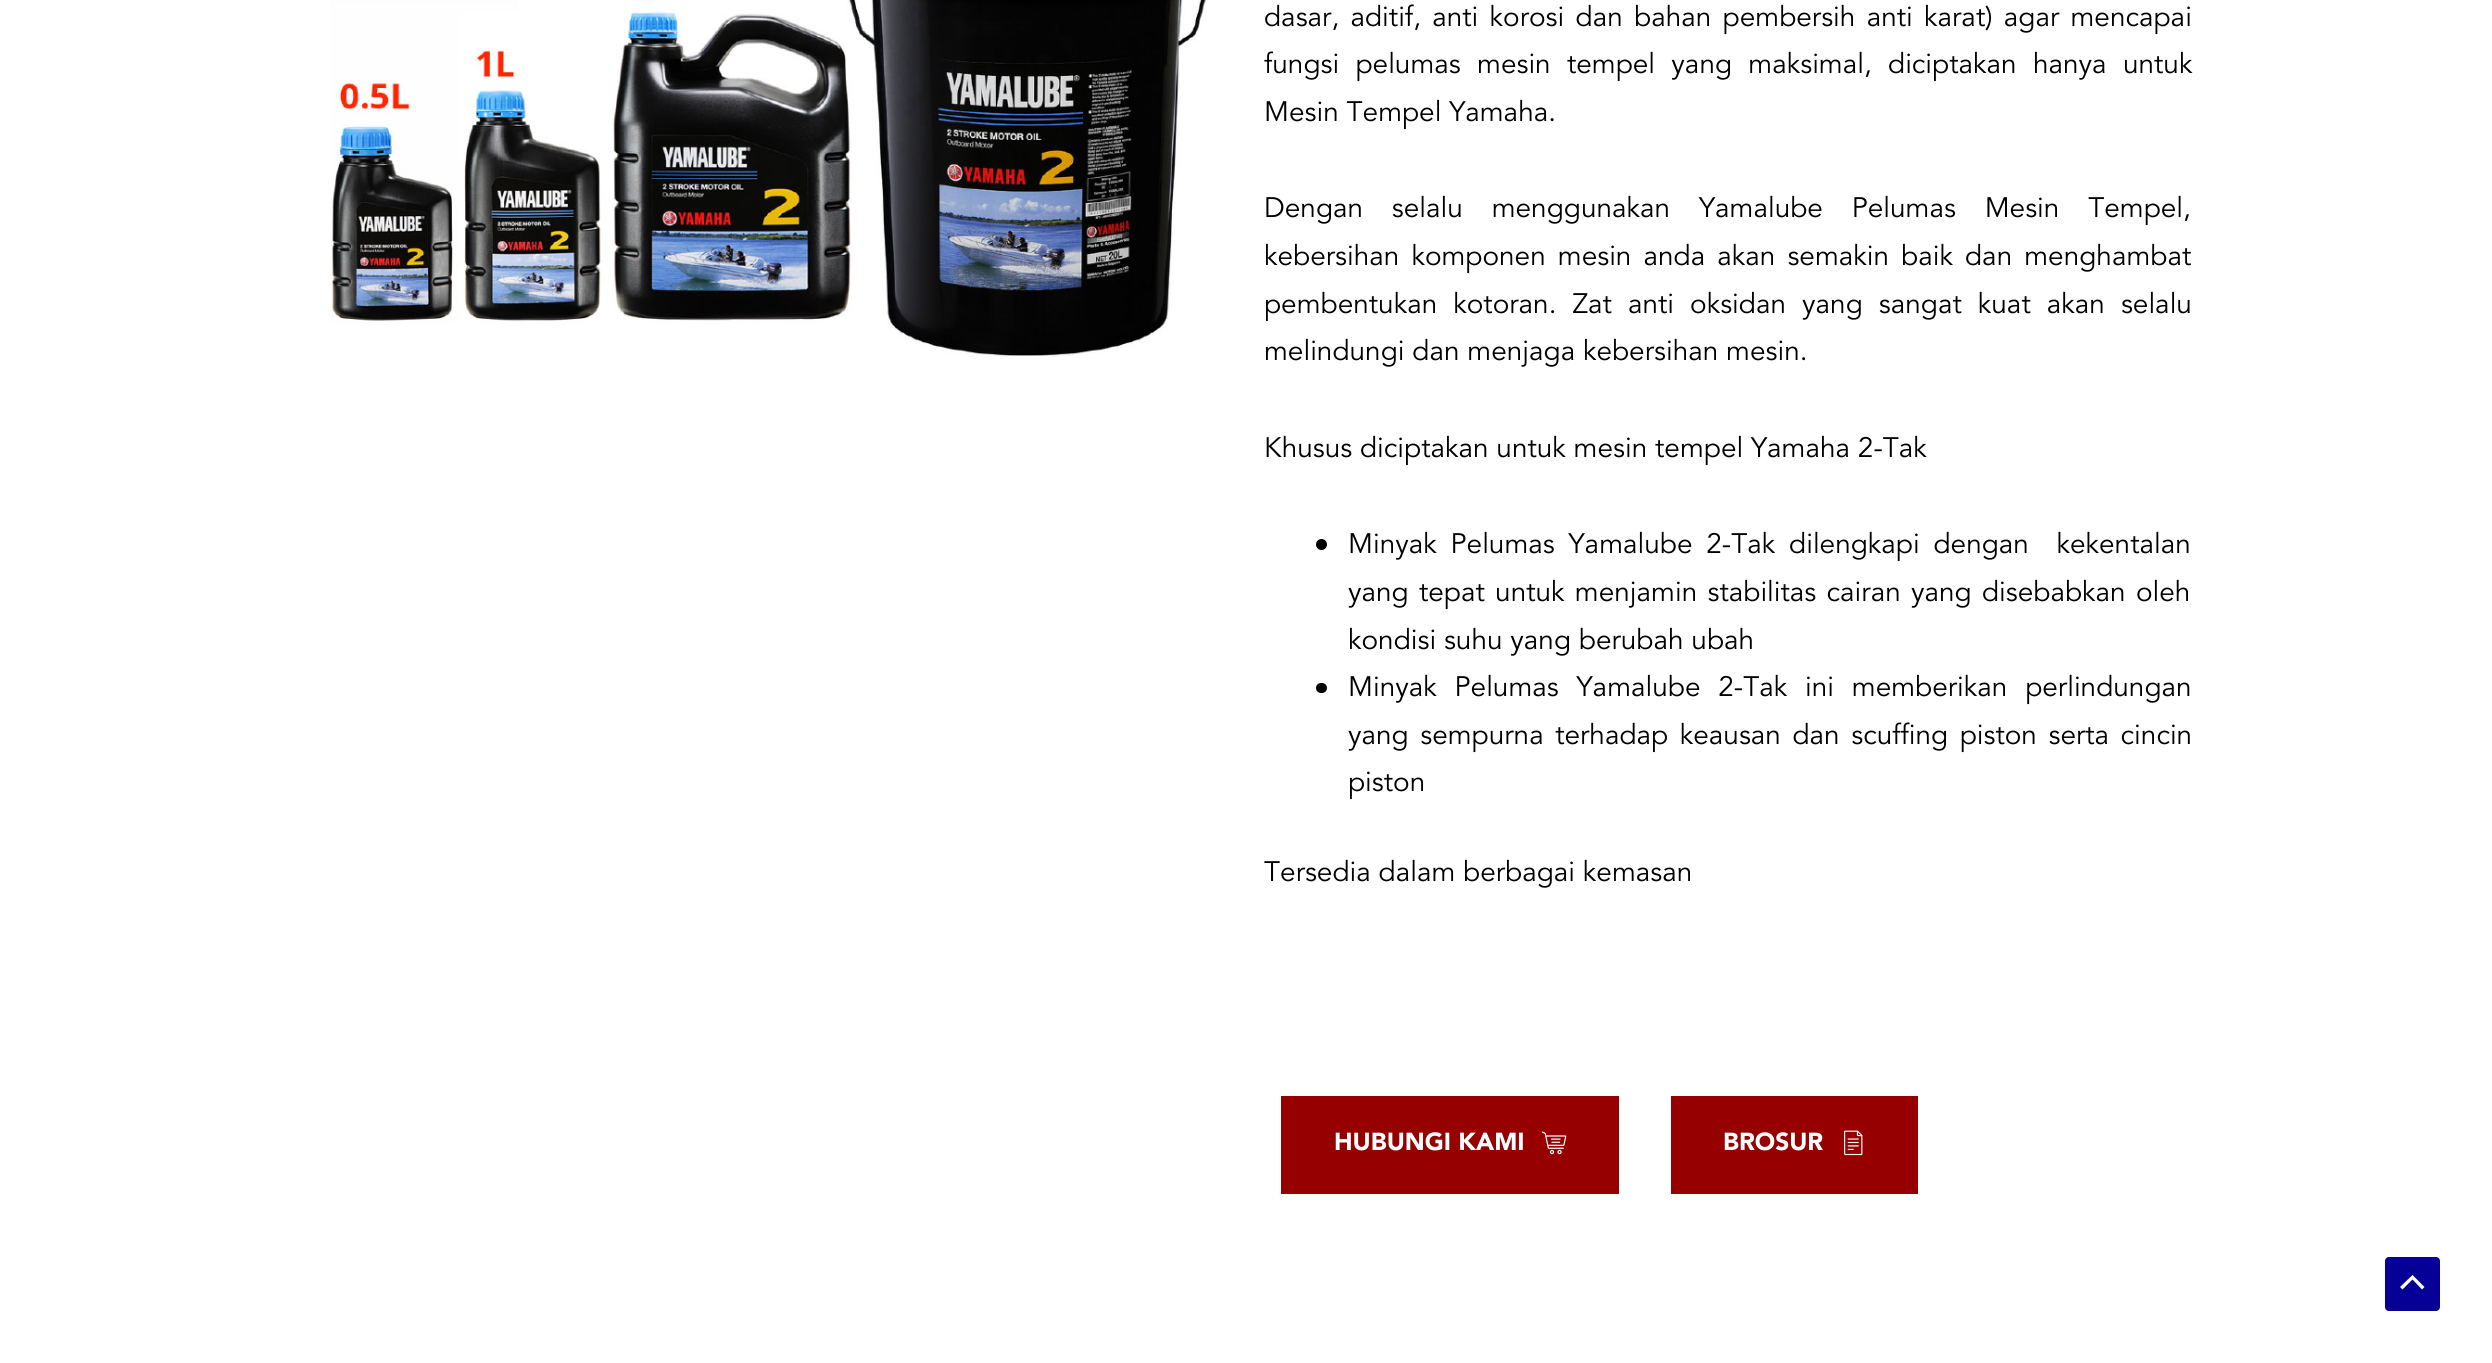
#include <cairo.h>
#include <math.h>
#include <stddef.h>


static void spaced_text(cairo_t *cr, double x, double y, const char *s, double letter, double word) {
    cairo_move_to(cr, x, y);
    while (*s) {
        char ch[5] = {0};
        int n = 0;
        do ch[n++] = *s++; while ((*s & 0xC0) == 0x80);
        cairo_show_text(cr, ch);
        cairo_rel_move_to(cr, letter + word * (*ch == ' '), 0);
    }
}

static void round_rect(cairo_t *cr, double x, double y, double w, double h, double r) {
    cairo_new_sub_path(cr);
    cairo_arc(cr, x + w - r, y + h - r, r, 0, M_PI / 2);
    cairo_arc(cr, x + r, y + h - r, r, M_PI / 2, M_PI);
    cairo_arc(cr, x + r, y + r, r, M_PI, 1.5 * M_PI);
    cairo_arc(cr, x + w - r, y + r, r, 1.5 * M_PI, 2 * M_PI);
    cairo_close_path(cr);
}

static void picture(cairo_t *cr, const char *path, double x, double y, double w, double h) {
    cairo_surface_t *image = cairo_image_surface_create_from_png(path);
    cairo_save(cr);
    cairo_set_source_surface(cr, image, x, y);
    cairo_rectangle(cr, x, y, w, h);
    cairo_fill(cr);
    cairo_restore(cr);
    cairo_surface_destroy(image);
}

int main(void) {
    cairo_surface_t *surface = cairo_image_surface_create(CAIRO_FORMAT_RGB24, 2492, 1363);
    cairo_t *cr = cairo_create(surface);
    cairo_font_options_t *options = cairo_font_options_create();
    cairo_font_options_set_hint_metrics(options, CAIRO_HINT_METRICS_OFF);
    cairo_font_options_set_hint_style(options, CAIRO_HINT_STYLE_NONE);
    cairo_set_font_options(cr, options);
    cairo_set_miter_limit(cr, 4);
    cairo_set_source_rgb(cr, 1, 1, 1);
    cairo_paint(cr);
    picture(cr, "img1.png", 330, 0, 877, 357);
    cairo_select_font_face(cr, "Avenir", CAIRO_FONT_SLANT_NORMAL, CAIRO_FONT_WEIGHT_NORMAL);
    cairo_set_font_size(cr, 28);
    cairo_set_source_rgb(cr, 0, 0, 0);
    spaced_text(cr, 1264, 26, "dasar, aditif, anti korosi dan bahan pembersih anti karat) agar mencapai", 0, 3.5);
    spaced_text(cr, 1264, 73, "fungsi pelumas mesin tempel yang maksimal, diciptakan hanya untuk", 0, 8.5);
    cairo_move_to(cr, 1264, 121);
    cairo_show_text(cr, "Mesin Tempel Yamaha.");
    spaced_text(cr, 1264, 217, "Dengan selalu menggunakan Yamalube Pelumas Mesin Tempel,", 0, 21);
    spaced_text(cr, 1264, 265, "kebersihan komponen mesin anda akan semakin baik dan menghambat", 0, 4.25);
    spaced_text(cr, 1264, 313, "pembentukan kotoran. Zat anti oksidan yang sangat kuat akan selalu", 0, 8.25);
    cairo_move_to(cr, 1264, 360);
    cairo_show_text(cr, "melindungi dan menjaga kebersihan mesin.");
    cairo_move_to(cr, 1264, 457);
    cairo_show_text(cr, "Khusus diciptakan untuk mesin tempel Yamaha 2-Tak");
    cairo_new_path(cr);
    cairo_arc(cr, 1321.5, 544.5, 5.5, 0, 2 * M_PI);
    cairo_fill(cr);
    spaced_text(cr, 1348, 553, "Minyak Pelumas Yamalube 2-Tak dilengkapi dengan  kekentalan", 0, 6);
    spaced_text(cr, 1348, 601, "yang tepat untuk menjamin stabilitas cairan yang disebabkan oleh", 0, 2.5);
    cairo_move_to(cr, 1348, 649);
    cairo_show_text(cr, "kondisi suhu yang berubah ubah");
    round_rect(cr, 1316, 683, 11, 10, 5);
    cairo_fill(cr);
    spaced_text(cr, 1348, 696, "Minyak Pelumas Yamalube 2-Tak ini memberikan perlindungan", 0, 10);
    spaced_text(cr, 1348, 744, "yang sempurna terhadap keausan dan scuffing piston serta cincin", 0, 3.75);
    cairo_move_to(cr, 1348, 791);
    cairo_show_text(cr, "piston");
    cairo_move_to(cr, 1264, 881);
    cairo_show_text(cr, "Tersedia dalam berbagai kemasan");
    cairo_set_source_rgb(cr, 0.588, 0, 0);
    cairo_rectangle(cr, 1281, 1096, 338, 98);
    cairo_fill(cr);
    cairo_select_font_face(cr, "Avenir Black", CAIRO_FONT_SLANT_NORMAL, CAIRO_FONT_WEIGHT_NORMAL);
    cairo_set_font_size(cr, 24.5);
    cairo_set_source_rgb(cr, 1, 1, 1);
    cairo_move_to(cr, 1334, 1150);
    cairo_show_text(cr, "HUBUNGI KAMI");
    picture(cr, "img2.png", 1541, 1131, 26, 24);
    cairo_set_source_rgb(cr, 0.588, 0, 0);
    cairo_rectangle(cr, 1671, 1096, 247, 98);
    cairo_fill(cr);
    cairo_set_source_rgb(cr, 1, 1, 1);
    cairo_move_to(cr, 1723, 1150);
    cairo_show_text(cr, "BROSUR");
    picture(cr, "img3.png", 1844, 1130, 19, 26);
    cairo_set_source_rgb(cr, 0.024, 0, 0.592);
    round_rect(cr, 2385, 1257, 55, 54, 4);
    cairo_fill(cr);
    cairo_set_source_rgb(cr, 1, 1, 1);
    cairo_new_path(cr);
    cairo_move_to(cr, 2424.5, 1287);
    cairo_line_to(cr, 2412.5, 1275);
    cairo_line_to(cr, 2400, 1287);
    cairo_line_to(cr, 2402.5, 1289.5);
    cairo_line_to(cr, 2412.5, 1279.5);
    cairo_line_to(cr, 2422, 1289.5);
    cairo_close_path(cr);
    cairo_fill(cr);
    cairo_surface_write_to_png(surface, "page.png");
    cairo_font_options_destroy(options);
    cairo_destroy(cr);
    cairo_surface_destroy(surface);
    return 0;
}
